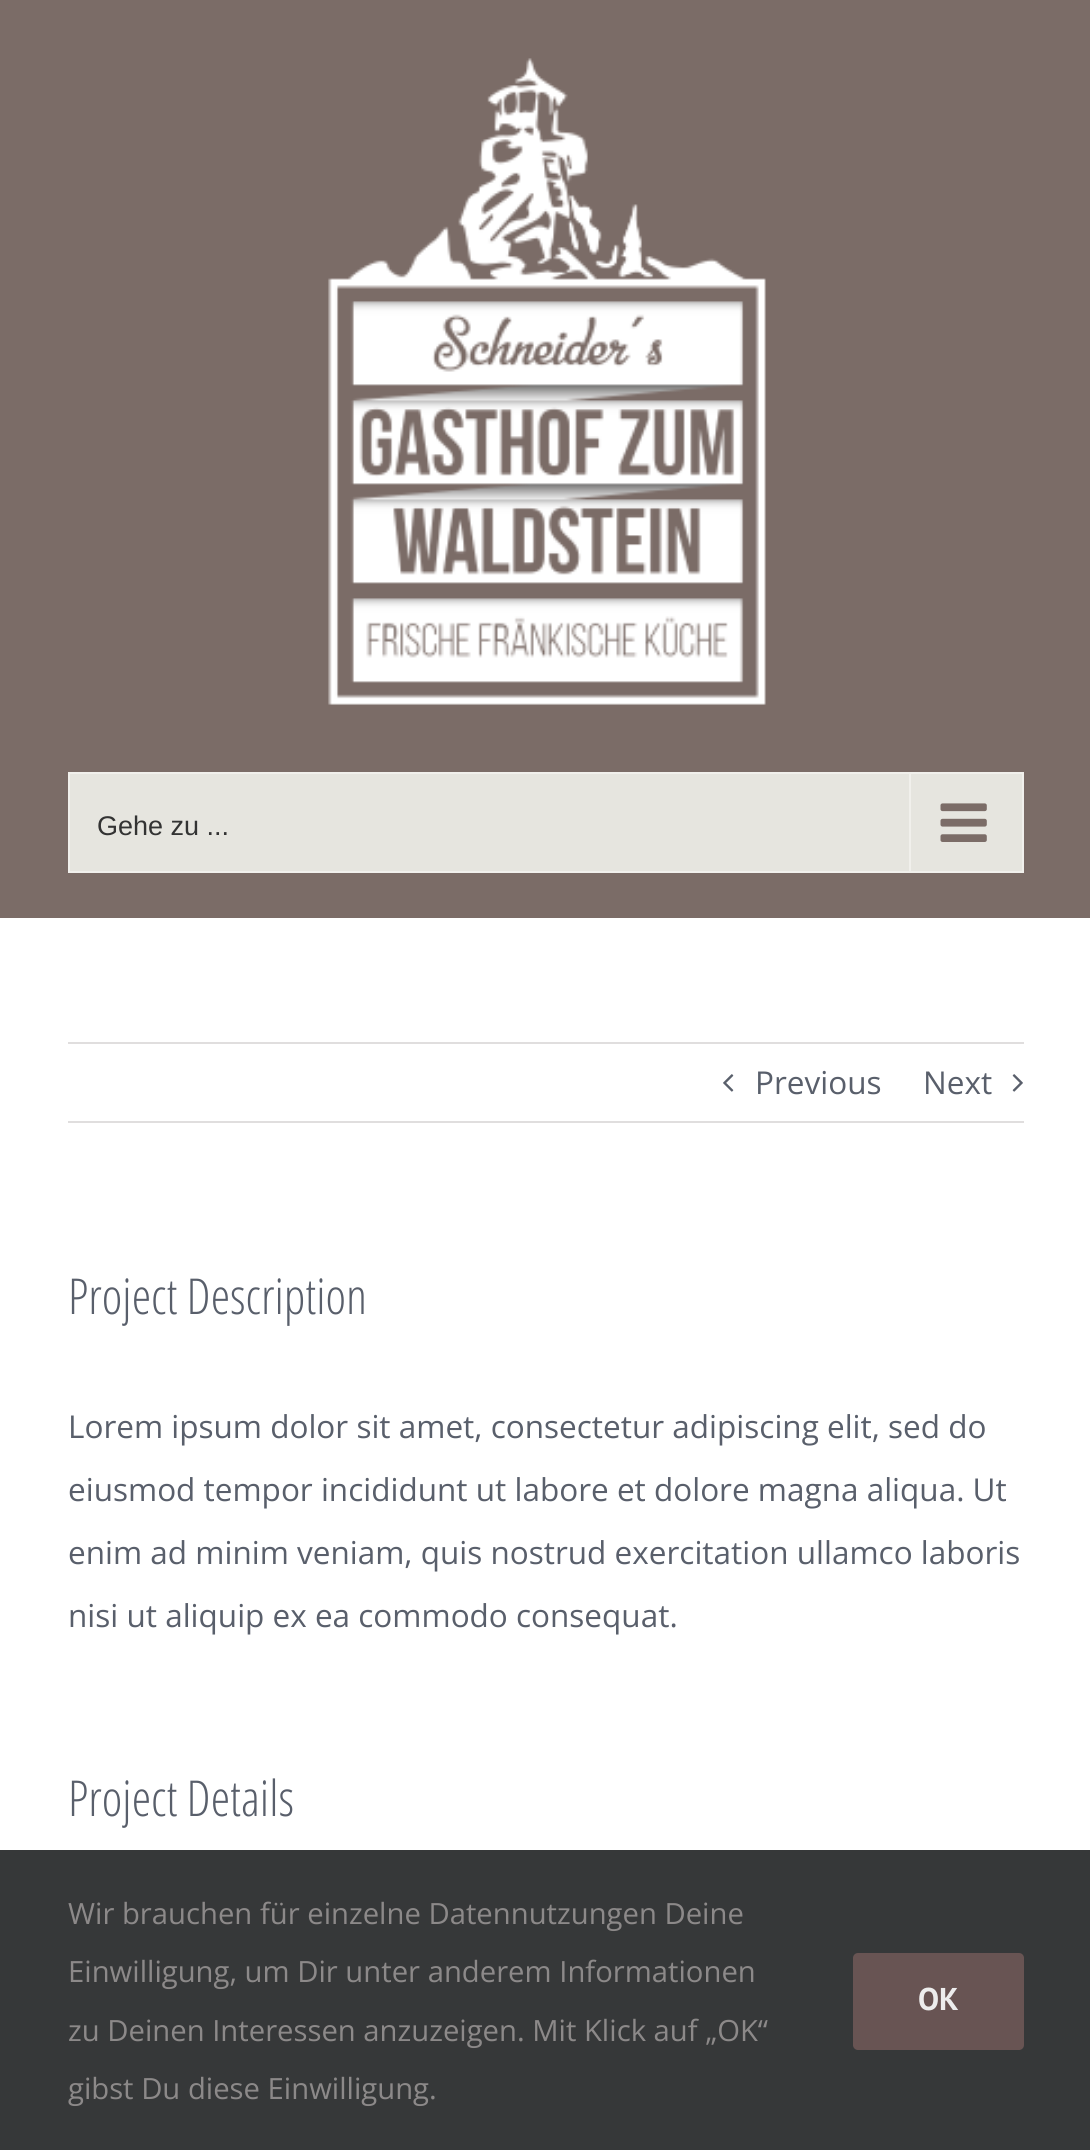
#include <cairo.h>
#include <math.h>
#include <stddef.h>


static void round_rect(cairo_t *cr, double x, double y, double w, double h, double r) {
    cairo_new_sub_path(cr);
    cairo_arc(cr, x + w - r, y + h - r, r, 0, M_PI / 2);
    cairo_arc(cr, x + r, y + h - r, r, M_PI / 2, M_PI);
    cairo_arc(cr, x + r, y + r, r, M_PI, 1.5 * M_PI);
    cairo_arc(cr, x + w - r, y + r, r, 1.5 * M_PI, 2 * M_PI);
    cairo_close_path(cr);
}

static void picture(cairo_t *cr, const char *path, double x, double y, double w, double h) {
    cairo_surface_t *image = cairo_image_surface_create_from_png(path);
    cairo_save(cr);
    cairo_set_source_surface(cr, image, x, y);
    cairo_rectangle(cr, x, y, w, h);
    cairo_fill(cr);
    cairo_restore(cr);
    cairo_surface_destroy(image);
}

int main(void) {
    cairo_surface_t *surface = cairo_image_surface_create(CAIRO_FORMAT_RGB24, 1090, 2150);
    cairo_t *cr = cairo_create(surface);
    cairo_font_options_t *options = cairo_font_options_create();
    cairo_font_options_set_hint_metrics(options, CAIRO_HINT_METRICS_OFF);
    cairo_font_options_set_hint_style(options, CAIRO_HINT_STYLE_NONE);
    cairo_set_font_options(cr, options);
    cairo_set_miter_limit(cr, 4);
    cairo_set_source_rgb(cr, 1, 1, 1);
    cairo_paint(cr);
    cairo_set_source_rgb(cr, 0.482, 0.424, 0.404);
    cairo_rectangle(cr, 0, 0, 1090, 918);
    cairo_fill(cr);
    picture(cr, "img1.png", 328, 58, 438, 647);
    cairo_set_source_rgb(cr, 0.902, 0.898, 0.875);
    cairo_rectangle(cr, 69, 773, 954, 99);
    cairo_fill_preserve(cr);
    cairo_set_source_rgb(cr, 0.945, 0.941, 0.925);
    cairo_stroke(cr);
    cairo_select_font_face(cr, "Liberation Sans", CAIRO_FONT_SLANT_NORMAL, CAIRO_FONT_WEIGHT_NORMAL);
    cairo_set_font_size(cr, 27);
    cairo_set_source_rgb(cr, 0.2, 0.2, 0.2);
    cairo_move_to(cr, 97, 835);
    cairo_show_text(cr, "Gehe zu ...");
    cairo_set_source_rgb(cr, 0.945, 0.941, 0.925);
    cairo_rectangle(cr, 909, 774, 2, 97);
    cairo_fill(cr);
    picture(cr, "img2.png", 940, 803, 47, 39);
    cairo_set_source_rgb(cr, 0.878, 0.871, 0.871);
    cairo_rectangle(cr, 68, 1042, 956, 2);
    cairo_fill(cr);
    cairo_rectangle(cr, 68, 1121, 956, 2);
    cairo_fill(cr);
    picture(cr, "img3.png", 723, 1074, 11, 18);
    cairo_select_font_face(cr, "Open Sans", CAIRO_FONT_SLANT_NORMAL, CAIRO_FONT_WEIGHT_NORMAL);
    cairo_set_font_size(cr, 31.5);
    cairo_set_source_rgb(cr, 0.349, 0.373, 0.42);
    cairo_move_to(cr, 755, 1094);
    cairo_show_text(cr, "Previous");
    cairo_move_to(cr, 923, 1094);
    cairo_show_text(cr, "Next");
    picture(cr, "img4.png", 1012, 1074, 11, 18);
    cairo_select_font_face(cr, "Open Sans Condensed Light", CAIRO_FONT_SLANT_NORMAL, CAIRO_FONT_WEIGHT_NORMAL);
    cairo_set_font_size(cr, 49.5);
    cairo_move_to(cr, 68, 1314);
    cairo_show_text(cr, "Project Description");
    cairo_select_font_face(cr, "Open Sans", CAIRO_FONT_SLANT_NORMAL, CAIRO_FONT_WEIGHT_NORMAL);
    cairo_set_font_size(cr, 31.5);
    cairo_move_to(cr, 68, 1438);
    cairo_show_text(cr, "Lorem ipsum dolor sit amet, consectetur adipiscing elit, sed do");
    cairo_move_to(cr, 68, 1501);
    cairo_show_text(cr, "eiusmod tempor incididunt ut labore et dolore magna aliqua. Ut");
    cairo_move_to(cr, 68, 1564);
    cairo_show_text(cr, "enim ad minim veniam, quis nostrud exercitation ullamco laboris");
    cairo_move_to(cr, 68, 1627);
    cairo_show_text(cr, "nisi ut aliquip ex ea commodo consequat.");
    cairo_select_font_face(cr, "Open Sans Condensed Light", CAIRO_FONT_SLANT_NORMAL, CAIRO_FONT_WEIGHT_NORMAL);
    cairo_set_font_size(cr, 49.5);
    cairo_move_to(cr, 68, 1816);
    cairo_show_text(cr, "Project Details");
    cairo_set_source_rgb(cr, 0.212, 0.22, 0.224);
    cairo_rectangle(cr, 0, 1850, 1090, 300);
    cairo_fill(cr);
    cairo_select_font_face(cr, "Open Sans", CAIRO_FONT_SLANT_NORMAL, CAIRO_FONT_WEIGHT_NORMAL);
    cairo_set_font_size(cr, 29.25);
    cairo_set_source_rgb(cr, 0.549, 0.537, 0.537);
    cairo_move_to(cr, 68, 1924);
    cairo_show_text(cr, "Wir brauchen für einzelne Datennutzungen Deine");
    cairo_move_to(cr, 68, 1982);
    cairo_show_text(cr, "Einwilligung, um Dir unter anderem Informationen");
    cairo_move_to(cr, 68, 2041);
    cairo_show_text(cr, "zu Deinen Interessen anzuzeigen. Mit Klick auf „OK“");
    cairo_move_to(cr, 68, 2099);
    cairo_show_text(cr, "gibst Du diese Einwilligung.");
    cairo_set_source_rgb(cr, 0.408, 0.329, 0.325);
    round_rect(cr, 853, 1953, 171, 97, 5);
    cairo_fill(cr);
    cairo_select_font_face(cr, "PT Sans", CAIRO_FONT_SLANT_NORMAL, CAIRO_FONT_WEIGHT_BOLD);
    cairo_set_font_size(cr, 31.5);
    cairo_set_source_rgb(cr, 0.929, 0.929, 0.929);
    cairo_move_to(cr, 918, 2010);
    cairo_show_text(cr, "OK");
    cairo_surface_write_to_png(surface, "page.png");
    cairo_font_options_destroy(options);
    cairo_destroy(cr);
    cairo_surface_destroy(surface);
    return 0;
}
